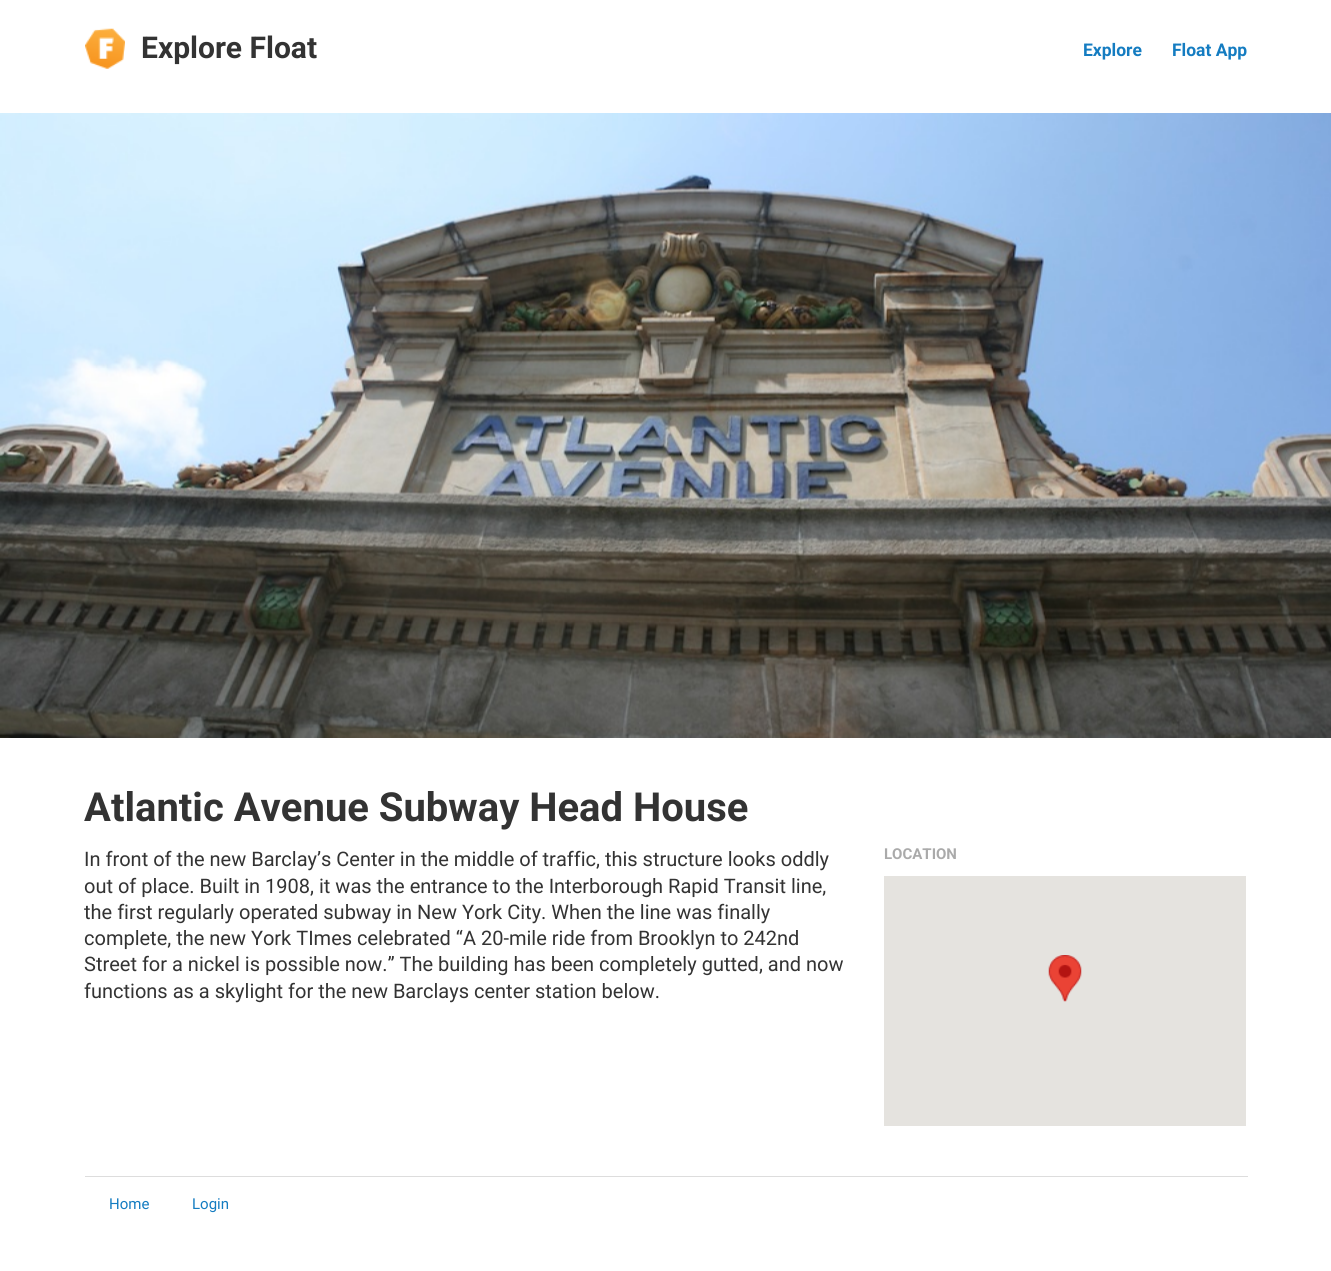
#include <cairo.h>
#include <math.h>
#include <stddef.h>


static void picture(cairo_t *cr, const char *path, double x, double y, double w, double h) {
    cairo_surface_t *image = cairo_image_surface_create_from_png(path);
    cairo_save(cr);
    cairo_set_source_surface(cr, image, x, y);
    cairo_rectangle(cr, x, y, w, h);
    cairo_fill(cr);
    cairo_restore(cr);
    cairo_surface_destroy(image);
}

int main(void) {
    cairo_surface_t *surface = cairo_image_surface_create(CAIRO_FORMAT_RGB24, 1331, 1271);
    cairo_t *cr = cairo_create(surface);
    cairo_font_options_t *options = cairo_font_options_create();
    cairo_font_options_set_hint_metrics(options, CAIRO_HINT_METRICS_OFF);
    cairo_font_options_set_hint_style(options, CAIRO_HINT_STYLE_NONE);
    cairo_set_font_options(cr, options);
    cairo_set_miter_limit(cr, 4);
    cairo_set_source_rgb(cr, 1, 1, 1);
    cairo_paint(cr);
    picture(cr, "img1.png", 85, 28, 40, 41);
    cairo_select_font_face(cr, "Roboto", CAIRO_FONT_SLANT_NORMAL, CAIRO_FONT_WEIGHT_BOLD);
    cairo_set_font_size(cr, 30);
    cairo_set_source_rgb(cr, 0.2, 0.2, 0.2);
    cairo_move_to(cr, 141, 58);
    cairo_show_text(cr, "Explore Float");
    cairo_set_font_size(cr, 17.5);
    cairo_set_source_rgb(cr, 0.082, 0.486, 0.757);
    cairo_move_to(cr, 1083, 56);
    cairo_show_text(cr, "Explore");
    cairo_move_to(cr, 1172, 56);
    cairo_show_text(cr, "Float App");
    picture(cr, "img2.png", 0, 113, 1331, 625);
    cairo_set_font_size(cr, 40);
    cairo_set_source_rgb(cr, 0.2, 0.2, 0.2);
    cairo_move_to(cr, 84, 821);
    cairo_show_text(cr, "Atlantic Avenue Subway Head House");
    cairo_select_font_face(cr, "Roboto", CAIRO_FONT_SLANT_NORMAL, CAIRO_FONT_WEIGHT_NORMAL);
    cairo_set_font_size(cr, 20);
    cairo_move_to(cr, 84, 866);
    cairo_show_text(cr, "In front of the new Barclay’s Center in the middle of traffic, this structure looks oddly");
    cairo_move_to(cr, 84, 893);
    cairo_show_text(cr, "out of place. Built in 1908, it was the entrance to the Interborough Rapid Transit line,");
    cairo_move_to(cr, 84, 919);
    cairo_show_text(cr, "the first regularly operated subway in New York City. When the line was finally");
    cairo_move_to(cr, 84, 945);
    cairo_show_text(cr, "complete, the new York TImes celebrated “A 20-mile ride from Brooklyn to 242nd");
    cairo_move_to(cr, 84, 971);
    cairo_show_text(cr, "Street for a nickel is possible now.” The building has been completely gutted, and now");
    cairo_move_to(cr, 84, 998);
    cairo_show_text(cr, "functions as a skylight for the new Barclays center station below.");
    cairo_select_font_face(cr, "Roboto", CAIRO_FONT_SLANT_NORMAL, CAIRO_FONT_WEIGHT_BOLD);
    cairo_set_font_size(cr, 15);
    cairo_set_source_rgb(cr, 0.667, 0.667, 0.667);
    cairo_move_to(cr, 884, 859);
    cairo_show_text(cr, "LOCATION");
    cairo_set_source_rgb(cr, 0.898, 0.89, 0.875);
    cairo_rectangle(cr, 884, 876, 362, 250);
    cairo_fill(cr);
    picture(cr, "img3.png", 1048, 955, 34, 47);
    cairo_set_source_rgb(cr, 0.867, 0.867, 0.867);
    cairo_rectangle(cr, 85, 1176, 1163, 1);
    cairo_fill(cr);
    cairo_select_font_face(cr, "Roboto", CAIRO_FONT_SLANT_NORMAL, CAIRO_FONT_WEIGHT_NORMAL);
    cairo_set_source_rgb(cr, 0.082, 0.486, 0.757);
    cairo_move_to(cr, 109, 1209);
    cairo_show_text(cr, "Home");
    cairo_move_to(cr, 192, 1209);
    cairo_show_text(cr, "Login");
    cairo_surface_write_to_png(surface, "page.png");
    cairo_font_options_destroy(options);
    cairo_destroy(cr);
    cairo_surface_destroy(surface);
    return 0;
}
